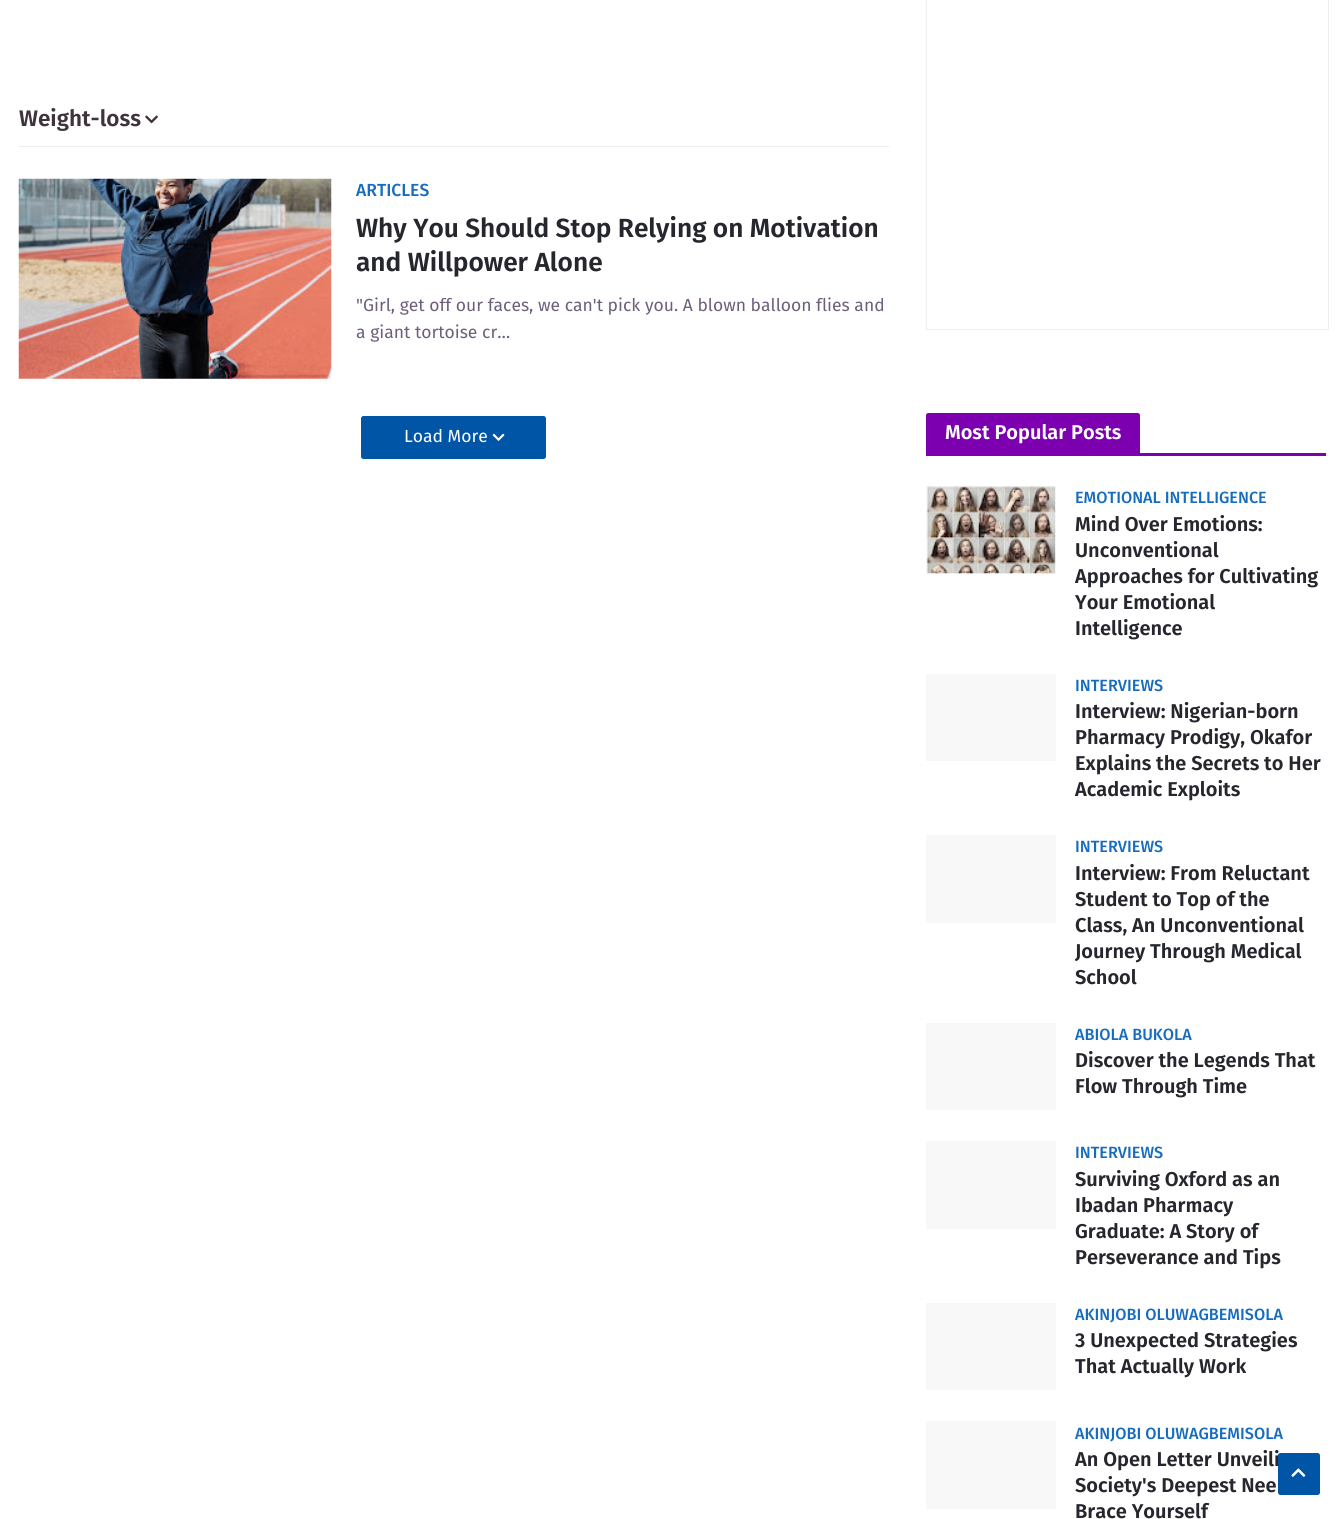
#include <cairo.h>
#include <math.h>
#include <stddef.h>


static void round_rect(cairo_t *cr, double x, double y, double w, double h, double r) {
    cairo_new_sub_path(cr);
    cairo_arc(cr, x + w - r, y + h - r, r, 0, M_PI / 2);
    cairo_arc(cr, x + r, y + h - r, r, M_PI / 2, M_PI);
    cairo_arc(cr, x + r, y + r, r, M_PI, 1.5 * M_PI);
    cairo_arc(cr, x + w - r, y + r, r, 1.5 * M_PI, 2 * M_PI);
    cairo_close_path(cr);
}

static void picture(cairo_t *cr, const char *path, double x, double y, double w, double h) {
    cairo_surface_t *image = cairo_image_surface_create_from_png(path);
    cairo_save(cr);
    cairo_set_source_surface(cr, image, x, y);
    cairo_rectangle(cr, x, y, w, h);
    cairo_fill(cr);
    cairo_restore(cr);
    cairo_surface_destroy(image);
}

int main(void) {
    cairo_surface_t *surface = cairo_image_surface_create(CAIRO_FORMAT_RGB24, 1344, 1519);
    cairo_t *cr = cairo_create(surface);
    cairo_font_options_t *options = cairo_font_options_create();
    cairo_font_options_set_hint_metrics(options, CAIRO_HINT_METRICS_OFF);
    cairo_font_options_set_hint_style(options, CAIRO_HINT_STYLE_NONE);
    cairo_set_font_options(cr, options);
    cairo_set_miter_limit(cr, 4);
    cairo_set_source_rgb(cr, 1, 1, 1);
    cairo_paint(cr);
    cairo_set_source_rgb(cr, 0.922, 0.922, 0.922);
    cairo_rectangle(cr, 19, 146, 870, 1);
    cairo_fill(cr);
    cairo_select_font_face(cr, "Fira Sans SemiBold", CAIRO_FONT_SLANT_NORMAL, CAIRO_FONT_WEIGHT_NORMAL);
    cairo_set_font_size(cr, 22.5);
    cairo_set_source_rgb(cr, 0.247, 0.2, 0.243);
    cairo_move_to(cr, 19, 126);
    cairo_show_text(cr, "Weight-loss");
    picture(cr, "img1.png", 145, 115, 13, 9);
    picture(cr, "img2.png", 18, 178, 314, 201);
    cairo_select_font_face(cr, "Fira Sans Medium", CAIRO_FONT_SLANT_NORMAL, CAIRO_FONT_WEIGHT_NORMAL);
    cairo_set_font_size(cr, 17.5);
    cairo_set_source_rgb(cr, 0.086, 0.424, 0.745);
    cairo_move_to(cr, 356, 196);
    cairo_show_text(cr, "ARTICLES");
    cairo_select_font_face(cr, "Fira Sans SemiBold", CAIRO_FONT_SLANT_NORMAL, CAIRO_FONT_WEIGHT_NORMAL);
    cairo_set_font_size(cr, 26.25);
    cairo_set_source_rgb(cr, 0.145, 0.149, 0.18);
    cairo_move_to(cr, 356, 237);
    cairo_show_text(cr, "Why You Should Stop Relying on Motivation");
    cairo_move_to(cr, 356, 271);
    cairo_show_text(cr, "and Willpower Alone");
    cairo_select_font_face(cr, "Fira Sans", CAIRO_FONT_SLANT_NORMAL, CAIRO_FONT_WEIGHT_NORMAL);
    cairo_set_font_size(cr, 17.5);
    cairo_set_source_rgb(cr, 0.435, 0.369, 0.482);
    cairo_move_to(cr, 356, 311);
    cairo_show_text(cr, "\"Girl, get off our faces, we can't pick you. A blown balloon flies and");
    cairo_move_to(cr, 356, 338);
    cairo_show_text(cr, "a giant tortoise cr…");
    cairo_set_source_rgb(cr, 0, 0.333, 0.651);
    round_rect(cr, 361, 416, 185, 43, 2.5);
    cairo_fill(cr);
    cairo_set_source_rgb(cr, 1, 1, 1);
    cairo_move_to(cr, 404, 442);
    cairo_show_text(cr, "Load More");
    picture(cr, "img3.png", 492, 433, 13, 8);
    cairo_rectangle(cr, 926.5, -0.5, 402, 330);
    cairo_set_source_rgb(cr, 0.933, 0.933, 0.933);
    cairo_set_line_width(cr, 1);
    cairo_stroke(cr);
    cairo_set_source_rgb(cr, 0.486, 0, 0.69);
    cairo_rectangle(cr, 926, 453, 400, 3);
    cairo_fill(cr);
    cairo_new_path(cr);
    cairo_move_to(cr, 928.5, 413);
    cairo_line_to(cr, 1137.5, 413);
    cairo_curve_to(cr, 1139, 413, 1140, 414, 1140, 415.5);
    cairo_line_to(cr, 1140, 455);
    cairo_line_to(cr, 926, 455);
    cairo_line_to(cr, 926, 415.5);
    cairo_curve_to(cr, 926, 414, 927, 413, 928.5, 413);
    cairo_close_path(cr);
    cairo_fill(cr);
    cairo_select_font_face(cr, "Fira Sans SemiBold", CAIRO_FONT_SLANT_NORMAL, CAIRO_FONT_WEIGHT_NORMAL);
    cairo_set_font_size(cr, 20);
    cairo_set_source_rgb(cr, 1, 1, 1);
    cairo_move_to(cr, 945, 439);
    cairo_show_text(cr, "Most Popular Posts");
    cairo_set_source_rgb(cr, 0.969, 0.969, 0.969);
    cairo_rectangle(cr, 926, 486, 130, 88);
    cairo_fill(cr);
    picture(cr, "img4.png", 926, 486, 130, 88);
    cairo_select_font_face(cr, "Fira Sans Medium", CAIRO_FONT_SLANT_NORMAL, CAIRO_FONT_WEIGHT_NORMAL);
    cairo_set_font_size(cr, 16.25);
    cairo_set_source_rgb(cr, 0.086, 0.424, 0.745);
    cairo_move_to(cr, 1075, 503);
    cairo_show_text(cr, "EMOTIONAL INTELLIGENCE");
    cairo_select_font_face(cr, "Fira Sans SemiBold", CAIRO_FONT_SLANT_NORMAL, CAIRO_FONT_WEIGHT_NORMAL);
    cairo_set_font_size(cr, 20);
    cairo_set_source_rgb(cr, 0.145, 0.149, 0.18);
    cairo_move_to(cr, 1075, 531);
    cairo_show_text(cr, "Mind Over Emotions:");
    cairo_move_to(cr, 1075, 557);
    cairo_show_text(cr, "Unconventional");
    cairo_move_to(cr, 1075, 583);
    cairo_show_text(cr, "Approaches for Cultivating");
    cairo_move_to(cr, 1075, 609);
    cairo_show_text(cr, "Your Emotional");
    cairo_move_to(cr, 1075, 635);
    cairo_show_text(cr, "Intelligence");
    cairo_set_source_rgb(cr, 0.969, 0.969, 0.969);
    cairo_rectangle(cr, 926, 674, 130, 87);
    cairo_fill(cr);
    cairo_select_font_face(cr, "Fira Sans Medium", CAIRO_FONT_SLANT_NORMAL, CAIRO_FONT_WEIGHT_NORMAL);
    cairo_set_font_size(cr, 16.25);
    cairo_set_source_rgb(cr, 0.086, 0.424, 0.745);
    cairo_move_to(cr, 1075, 691);
    cairo_show_text(cr, "INTERVIEWS");
    cairo_select_font_face(cr, "Fira Sans SemiBold", CAIRO_FONT_SLANT_NORMAL, CAIRO_FONT_WEIGHT_NORMAL);
    cairo_set_font_size(cr, 20);
    cairo_set_source_rgb(cr, 0.145, 0.149, 0.18);
    cairo_move_to(cr, 1075, 718);
    cairo_show_text(cr, "Interview: Nigerian-born");
    cairo_move_to(cr, 1075, 744);
    cairo_show_text(cr, "Pharmacy Prodigy, Okafor");
    cairo_move_to(cr, 1075, 770);
    cairo_show_text(cr, "Explains the Secrets to Her");
    cairo_move_to(cr, 1075, 796);
    cairo_show_text(cr, "Academic Exploits");
    cairo_set_source_rgb(cr, 0.969, 0.969, 0.969);
    cairo_rectangle(cr, 926, 835, 130, 88);
    cairo_fill(cr);
    cairo_select_font_face(cr, "Fira Sans Medium", CAIRO_FONT_SLANT_NORMAL, CAIRO_FONT_WEIGHT_NORMAL);
    cairo_set_font_size(cr, 16.25);
    cairo_set_source_rgb(cr, 0.086, 0.424, 0.745);
    cairo_move_to(cr, 1075, 852);
    cairo_show_text(cr, "INTERVIEWS");
    cairo_select_font_face(cr, "Fira Sans SemiBold", CAIRO_FONT_SLANT_NORMAL, CAIRO_FONT_WEIGHT_NORMAL);
    cairo_set_font_size(cr, 20);
    cairo_set_source_rgb(cr, 0.145, 0.149, 0.18);
    cairo_move_to(cr, 1075, 880);
    cairo_show_text(cr, "Interview: From Reluctant");
    cairo_move_to(cr, 1075, 906);
    cairo_show_text(cr, "Student to Top of the");
    cairo_move_to(cr, 1075, 932);
    cairo_show_text(cr, "Class, An Unconventional");
    cairo_move_to(cr, 1075, 958);
    cairo_show_text(cr, "Journey Through Medical");
    cairo_move_to(cr, 1075, 984);
    cairo_show_text(cr, "School");
    cairo_set_source_rgb(cr, 0.969, 0.969, 0.969);
    cairo_rectangle(cr, 926, 1023, 130, 87);
    cairo_fill(cr);
    cairo_select_font_face(cr, "Fira Sans Medium", CAIRO_FONT_SLANT_NORMAL, CAIRO_FONT_WEIGHT_NORMAL);
    cairo_set_font_size(cr, 16.25);
    cairo_set_source_rgb(cr, 0.086, 0.424, 0.745);
    cairo_move_to(cr, 1075, 1040);
    cairo_show_text(cr, "ABIOLA BUKOLA");
    cairo_select_font_face(cr, "Fira Sans SemiBold", CAIRO_FONT_SLANT_NORMAL, CAIRO_FONT_WEIGHT_NORMAL);
    cairo_set_font_size(cr, 20);
    cairo_set_source_rgb(cr, 0.145, 0.149, 0.18);
    cairo_move_to(cr, 1075, 1067);
    cairo_show_text(cr, "Discover the Legends That");
    cairo_move_to(cr, 1075, 1093);
    cairo_show_text(cr, "Flow Through Time");
    cairo_set_source_rgb(cr, 0.969, 0.969, 0.969);
    cairo_rectangle(cr, 926, 1141, 130, 88);
    cairo_fill(cr);
    cairo_select_font_face(cr, "Fira Sans Medium", CAIRO_FONT_SLANT_NORMAL, CAIRO_FONT_WEIGHT_NORMAL);
    cairo_set_font_size(cr, 16.25);
    cairo_set_source_rgb(cr, 0.086, 0.424, 0.745);
    cairo_move_to(cr, 1075, 1158);
    cairo_show_text(cr, "INTERVIEWS");
    cairo_select_font_face(cr, "Fira Sans SemiBold", CAIRO_FONT_SLANT_NORMAL, CAIRO_FONT_WEIGHT_NORMAL);
    cairo_set_font_size(cr, 20);
    cairo_set_source_rgb(cr, 0.145, 0.149, 0.18);
    cairo_move_to(cr, 1075, 1186);
    cairo_show_text(cr, "Surviving Oxford as an");
    cairo_move_to(cr, 1075, 1212);
    cairo_show_text(cr, "Ibadan Pharmacy");
    cairo_move_to(cr, 1075, 1238);
    cairo_show_text(cr, "Graduate: A Story of");
    cairo_move_to(cr, 1075, 1264);
    cairo_show_text(cr, "Perseverance and Tips");
    cairo_set_source_rgb(cr, 0.969, 0.969, 0.969);
    cairo_rectangle(cr, 926, 1303, 130, 87);
    cairo_fill(cr);
    cairo_select_font_face(cr, "Fira Sans Medium", CAIRO_FONT_SLANT_NORMAL, CAIRO_FONT_WEIGHT_NORMAL);
    cairo_set_font_size(cr, 16.25);
    cairo_set_source_rgb(cr, 0.086, 0.424, 0.745);
    cairo_move_to(cr, 1075, 1320);
    cairo_show_text(cr, "AKINJOBI OLUWAGBEMISOLA");
    cairo_select_font_face(cr, "Fira Sans SemiBold", CAIRO_FONT_SLANT_NORMAL, CAIRO_FONT_WEIGHT_NORMAL);
    cairo_set_font_size(cr, 20);
    cairo_set_source_rgb(cr, 0.145, 0.149, 0.18);
    cairo_move_to(cr, 1075, 1347);
    cairo_show_text(cr, "3 Unexpected Strategies");
    cairo_move_to(cr, 1075, 1373);
    cairo_show_text(cr, "That Actually Work");
    cairo_set_source_rgb(cr, 0.969, 0.969, 0.969);
    cairo_rectangle(cr, 926, 1421, 130, 88);
    cairo_fill(cr);
    cairo_select_font_face(cr, "Fira Sans Medium", CAIRO_FONT_SLANT_NORMAL, CAIRO_FONT_WEIGHT_NORMAL);
    cairo_set_font_size(cr, 16.25);
    cairo_set_source_rgb(cr, 0.086, 0.424, 0.745);
    cairo_move_to(cr, 1075, 1439);
    cairo_show_text(cr, "AKINJOBI OLUWAGBEMISOLA");
    cairo_select_font_face(cr, "Fira Sans SemiBold", CAIRO_FONT_SLANT_NORMAL, CAIRO_FONT_WEIGHT_NORMAL);
    cairo_set_font_size(cr, 20);
    cairo_set_source_rgb(cr, 0.145, 0.149, 0.18);
    cairo_move_to(cr, 1075, 1466);
    cairo_show_text(cr, "An Open Letter Unveili");
    cairo_move_to(cr, 1075, 1492);
    cairo_show_text(cr, "Society's Deepest Nee");
    cairo_move_to(cr, 1075, 1518);
    cairo_show_text(cr, "Brace Yourself");
    cairo_set_source_rgb(cr, 0, 0.333, 0.651);
    round_rect(cr, 1278, 1453, 42, 42, 2.5);
    cairo_fill(cr);
    picture(cr, "img5.png", 1291, 1468, 15, 9);
    cairo_surface_write_to_png(surface, "page.png");
    cairo_font_options_destroy(options);
    cairo_destroy(cr);
    cairo_surface_destroy(surface);
    return 0;
}
